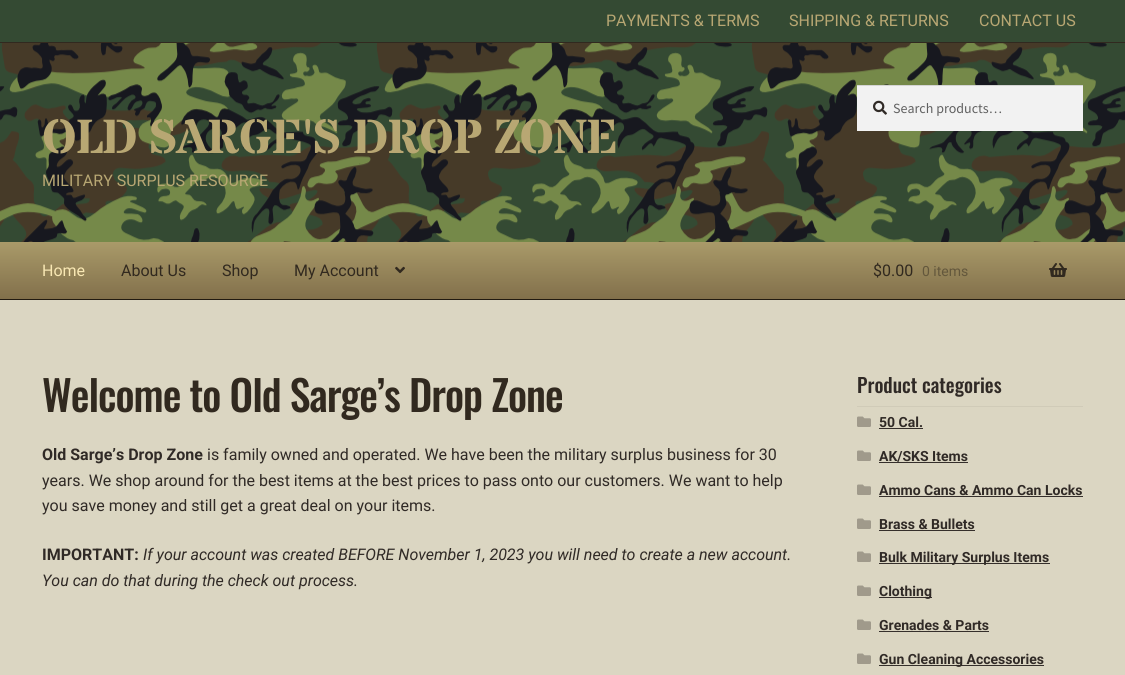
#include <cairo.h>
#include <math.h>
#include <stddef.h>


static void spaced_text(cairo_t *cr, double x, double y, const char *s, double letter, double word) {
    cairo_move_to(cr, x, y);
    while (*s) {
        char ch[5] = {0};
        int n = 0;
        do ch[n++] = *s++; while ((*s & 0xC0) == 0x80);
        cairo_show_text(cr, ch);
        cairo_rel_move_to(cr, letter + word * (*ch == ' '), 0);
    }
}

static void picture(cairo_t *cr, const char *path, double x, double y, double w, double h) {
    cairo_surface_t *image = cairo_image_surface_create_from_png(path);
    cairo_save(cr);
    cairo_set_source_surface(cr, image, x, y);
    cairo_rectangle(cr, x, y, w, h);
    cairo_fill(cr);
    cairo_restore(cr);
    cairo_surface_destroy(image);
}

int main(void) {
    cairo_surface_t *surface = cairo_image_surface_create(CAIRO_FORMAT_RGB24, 1125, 675);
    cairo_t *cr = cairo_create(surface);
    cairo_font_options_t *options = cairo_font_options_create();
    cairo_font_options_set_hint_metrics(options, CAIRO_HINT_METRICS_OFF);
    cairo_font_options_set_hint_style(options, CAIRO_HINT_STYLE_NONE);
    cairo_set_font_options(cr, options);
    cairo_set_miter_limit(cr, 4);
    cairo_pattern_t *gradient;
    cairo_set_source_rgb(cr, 0.859, 0.839, 0.761);
    cairo_paint(cr);
    cairo_set_source_rgb(cr, 0.204, 0.29, 0.2);
    cairo_rectangle(cr, 0, 0, 1125, 42);
    cairo_fill(cr);
    cairo_set_source_rgb(cr, 0.192, 0.161, 0.122);
    cairo_rectangle(cr, 0, 42, 1125, 1);
    cairo_fill(cr);
    cairo_select_font_face(cr, "Roboto", CAIRO_FONT_SLANT_NORMAL, CAIRO_FONT_WEIGHT_NORMAL);
    cairo_set_font_size(cr, 16);
    cairo_set_source_rgb(cr, 0.722, 0.655, 0.451);
    cairo_move_to(cr, 606, 26);
    cairo_show_text(cr, "PAYMENTS & TERMS");
    cairo_move_to(cr, 789, 26);
    cairo_show_text(cr, "SHIPPING & RETURNS");
    cairo_move_to(cr, 979, 26);
    cairo_show_text(cr, "CONTACT US");
    picture(cr, "img1.png", 0, 43, 1125, 199);
    cairo_set_source_rgb(cr, 0.133, 0.102, 0.063);
    cairo_rectangle(cr, 0, 299, 1125, 1);
    cairo_fill(cr);
    cairo_set_source_rgb(cr, 0.949, 0.949, 0.949);
    cairo_rectangle(cr, 857, 86, 226, 45);
    cairo_fill(cr);
    picture(cr, "img2.png", 873, 100, 14, 15);
    cairo_set_source_rgb(cr, 0.831, 0.831, 0.831);
    cairo_rectangle(cr, 857, 85, 226, 1);
    cairo_fill(cr);
    cairo_select_font_face(cr, "Source Sans Pro", CAIRO_FONT_SLANT_NORMAL, CAIRO_FONT_WEIGHT_NORMAL);
    cairo_set_font_size(cr, 14);
    cairo_set_source_rgb(cr, 0.38, 0.38, 0.38);
    cairo_move_to(cr, 893, 113);
    cairo_show_text(cr, "Search products…");
    cairo_select_font_face(cr, "Stardos Stencil", CAIRO_FONT_SLANT_NORMAL, CAIRO_FONT_WEIGHT_BOLD);
    cairo_set_font_size(cr, 48);
    cairo_set_source_rgb(cr, 0.722, 0.655, 0.451);
    spaced_text(cr, 42, 153, "OLD SARGE'S DROP ZONE", -1, 0);
    cairo_select_font_face(cr, "Roboto", CAIRO_FONT_SLANT_NORMAL, CAIRO_FONT_WEIGHT_NORMAL);
    cairo_set_font_size(cr, 16);
    cairo_move_to(cr, 42, 186);
    cairo_show_text(cr, "MILITARY SURPLUS RESOURCE");
    gradient = cairo_pattern_create_linear(563, 242, 563, 299);
    cairo_pattern_add_color_stop_rgba(gradient, 0, 0.663, 0.604, 0.412, 1);
    cairo_pattern_add_color_stop_rgba(gradient, 1, 0.51, 0.439, 0.294, 1);
    cairo_set_source(cr, gradient);
    cairo_pattern_destroy(gradient);
    cairo_rectangle(cr, 0, 242, 1125, 57);
    cairo_fill(cr);
    cairo_set_source_rgb(cr, 0.976, 0.91, 0.706);
    cairo_move_to(cr, 42, 276);
    cairo_show_text(cr, "Home");
    cairo_set_source_rgb(cr, 0.192, 0.161, 0.122);
    cairo_move_to(cr, 121, 276);
    cairo_show_text(cr, "About Us");
    cairo_move_to(cr, 222, 276);
    cairo_show_text(cr, "Shop");
    cairo_move_to(cr, 294, 276);
    cairo_show_text(cr, "My Account");
    picture(cr, "img3.png", 395, 266, 10, 8);
    cairo_move_to(cr, 873, 276);
    cairo_show_text(cr, "$0.00");
    cairo_set_font_size(cr, 14);
    cairo_set_source_rgb(cr, 0.388, 0.341, 0.235);
    cairo_move_to(cr, 922, 276);
    cairo_show_text(cr, "0 items");
    picture(cr, "img4.png", 1049, 263, 18, 14);
    cairo_select_font_face(cr, "Oswald Medium", CAIRO_FONT_SLANT_NORMAL, CAIRO_FONT_WEIGHT_NORMAL);
    cairo_set_font_size(cr, 41.9);
    cairo_set_source_rgb(cr, 0.192, 0.161, 0.122);
    spaced_text(cr, 42, 412, "Welcome to Old Sarge’s Drop Zone", -1, 0);
    cairo_select_font_face(cr, "Roboto", CAIRO_FONT_SLANT_NORMAL, CAIRO_FONT_WEIGHT_BOLD);
    cairo_set_font_size(cr, 16);
    cairo_set_source_rgb(cr, 0.188, 0.165, 0.149);
    cairo_move_to(cr, 42, 460);
    cairo_show_text(cr, "Old Sarge’s Drop Zone");
    cairo_select_font_face(cr, "Roboto", CAIRO_FONT_SLANT_NORMAL, CAIRO_FONT_WEIGHT_NORMAL);
    cairo_move_to(cr, 207, 460);
    cairo_show_text(cr, "is family owned and operated. We have been the military surplus business for 30");
    cairo_move_to(cr, 42, 486);
    cairo_show_text(cr, "years. We shop around for the best items at the best prices to pass onto our customers. We want to help");
    cairo_move_to(cr, 42, 511);
    cairo_show_text(cr, "you save money and still get a great deal on your items.");
    cairo_select_font_face(cr, "Roboto", CAIRO_FONT_SLANT_NORMAL, CAIRO_FONT_WEIGHT_BOLD);
    cairo_move_to(cr, 42, 560);
    cairo_show_text(cr, "IMPORTANT:");
    cairo_select_font_face(cr, "Roboto", CAIRO_FONT_SLANT_ITALIC, CAIRO_FONT_WEIGHT_NORMAL);
    cairo_move_to(cr, 143, 560);
    cairo_show_text(cr, "If your account was created BEFORE November 1, 2023 you will need to create a new account.");
    cairo_move_to(cr, 42, 586);
    cairo_show_text(cr, "You can do that during the check out process.");
    cairo_set_source_rgb(cr, 0.816, 0.796, 0.722);
    cairo_rectangle(cr, 857, 406, 226, 1);
    cairo_fill(cr);
    cairo_select_font_face(cr, "Oswald Medium", CAIRO_FONT_SLANT_NORMAL, CAIRO_FONT_WEIGHT_NORMAL);
    cairo_set_font_size(cr, 19.75);
    cairo_set_source_rgb(cr, 0.188, 0.165, 0.149);
    cairo_move_to(cr, 857, 393);
    cairo_show_text(cr, "Product categories");
    picture(cr, "img5.png", 857, 416, 14, 11);
    cairo_select_font_face(cr, "Roboto", CAIRO_FONT_SLANT_NORMAL, CAIRO_FONT_WEIGHT_BOLD);
    cairo_set_font_size(cr, 14);
    cairo_move_to(cr, 879, 427);
    cairo_show_text(cr, "50 Cal.");
    cairo_set_source_rgb(cr, 0.208, 0.184, 0.169);
    cairo_rectangle(cr, 879, 428, 44, 1);
    cairo_fill(cr);
    picture(cr, "img5.png", 857, 450, 14, 11);
    cairo_set_source_rgb(cr, 0.188, 0.165, 0.149);
    cairo_move_to(cr, 879, 461);
    cairo_show_text(cr, "AK/SKS Items");
    cairo_set_source_rgb(cr, 0.208, 0.184, 0.169);
    cairo_rectangle(cr, 879, 462, 89, 1);
    cairo_fill(cr);
    picture(cr, "img5.png", 857, 484, 14, 11);
    cairo_set_source_rgb(cr, 0.188, 0.165, 0.149);
    cairo_move_to(cr, 879, 495);
    cairo_show_text(cr, "Ammo Cans & Ammo Can Locks");
    cairo_set_source_rgb(cr, 0.208, 0.184, 0.169);
    cairo_rectangle(cr, 879, 496, 204, 1);
    cairo_fill(cr);
    picture(cr, "img5.png", 857, 518, 14, 11);
    cairo_set_source_rgb(cr, 0.188, 0.165, 0.149);
    cairo_move_to(cr, 879, 529);
    cairo_show_text(cr, "Brass & Bullets");
    cairo_set_source_rgb(cr, 0.208, 0.184, 0.169);
    cairo_rectangle(cr, 879, 530, 96, 1);
    cairo_fill(cr);
    picture(cr, "img5.png", 857, 551, 14, 11);
    cairo_rectangle(cr, 879, 563, 171, 1);
    cairo_fill(cr);
    cairo_set_source_rgb(cr, 0.188, 0.165, 0.149);
    cairo_move_to(cr, 879, 562);
    cairo_show_text(cr, "Bulk Military Surplus Items");
    picture(cr, "img5.png", 857, 585, 14, 11);
    cairo_set_source_rgb(cr, 0.208, 0.184, 0.169);
    cairo_rectangle(cr, 879, 597, 53, 1);
    cairo_fill(cr);
    cairo_set_source_rgb(cr, 0.188, 0.165, 0.149);
    cairo_move_to(cr, 879, 596);
    cairo_show_text(cr, "Clothing");
    picture(cr, "img5.png", 857, 619, 14, 11);
    cairo_move_to(cr, 879, 630);
    cairo_show_text(cr, "Grenades & Parts");
    cairo_set_source_rgb(cr, 0.208, 0.184, 0.169);
    cairo_rectangle(cr, 879, 631, 110, 1);
    cairo_fill(cr);
    picture(cr, "img5.png", 857, 653, 14, 11);
    cairo_rectangle(cr, 879, 665, 165, 1);
    cairo_fill(cr);
    cairo_set_source_rgb(cr, 0.188, 0.165, 0.149);
    cairo_move_to(cr, 879, 664);
    cairo_show_text(cr, "Gun Cleaning Accessories");
    cairo_surface_write_to_png(surface, "page.png");
    cairo_font_options_destroy(options);
    cairo_destroy(cr);
    cairo_surface_destroy(surface);
    return 0;
}
